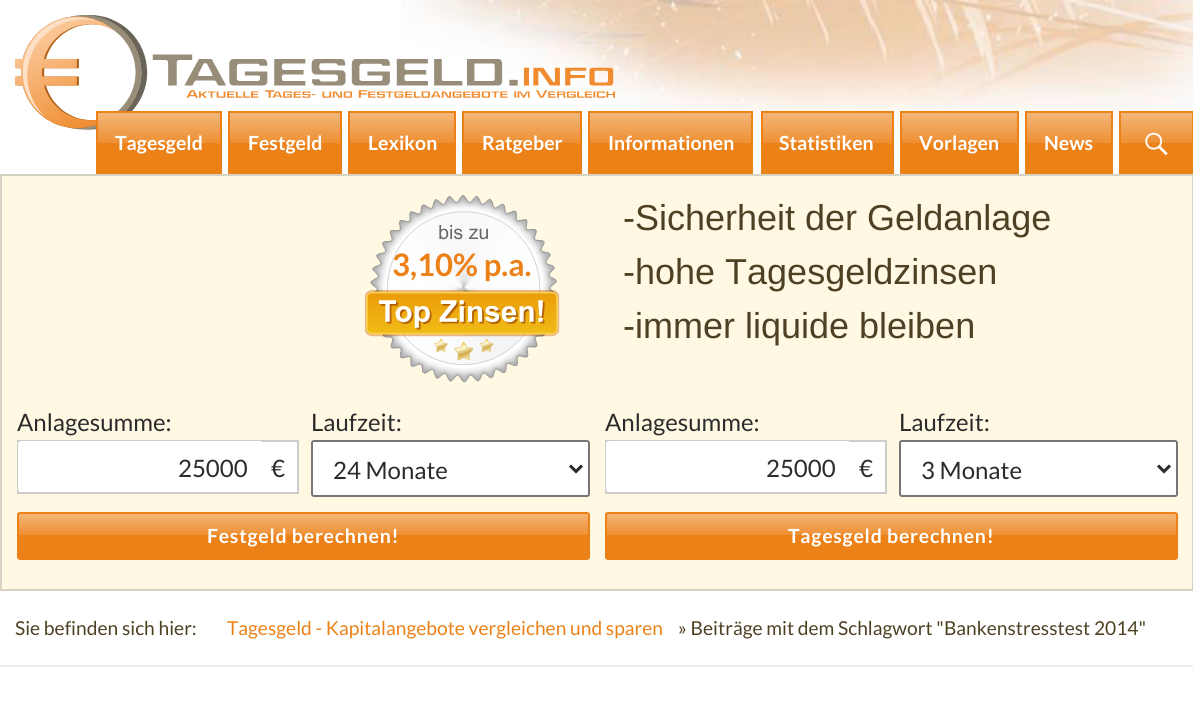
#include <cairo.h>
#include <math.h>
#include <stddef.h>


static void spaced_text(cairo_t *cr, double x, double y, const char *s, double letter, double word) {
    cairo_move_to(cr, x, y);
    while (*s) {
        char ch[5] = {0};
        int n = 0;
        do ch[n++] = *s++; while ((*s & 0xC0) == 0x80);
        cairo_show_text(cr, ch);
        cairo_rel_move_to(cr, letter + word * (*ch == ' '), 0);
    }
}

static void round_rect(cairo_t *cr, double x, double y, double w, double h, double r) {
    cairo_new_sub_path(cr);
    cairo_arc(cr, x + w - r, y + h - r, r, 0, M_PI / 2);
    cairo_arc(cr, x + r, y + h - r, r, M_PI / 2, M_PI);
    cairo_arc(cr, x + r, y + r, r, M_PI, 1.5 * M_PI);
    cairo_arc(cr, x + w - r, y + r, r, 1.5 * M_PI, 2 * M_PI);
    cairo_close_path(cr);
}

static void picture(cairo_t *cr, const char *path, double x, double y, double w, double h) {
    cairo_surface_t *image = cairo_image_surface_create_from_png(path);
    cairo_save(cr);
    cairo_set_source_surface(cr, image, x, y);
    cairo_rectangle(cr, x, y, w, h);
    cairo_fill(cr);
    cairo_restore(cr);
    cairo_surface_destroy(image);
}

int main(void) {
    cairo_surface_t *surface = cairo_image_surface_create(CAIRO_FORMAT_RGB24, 1193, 726);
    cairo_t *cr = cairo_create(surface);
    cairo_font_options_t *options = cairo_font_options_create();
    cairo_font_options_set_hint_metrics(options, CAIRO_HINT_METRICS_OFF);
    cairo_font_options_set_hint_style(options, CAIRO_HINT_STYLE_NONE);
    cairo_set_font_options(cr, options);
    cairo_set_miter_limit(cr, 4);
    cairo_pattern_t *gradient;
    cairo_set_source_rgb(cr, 1, 1, 1);
    cairo_paint(cr);
    picture(cr, "img1.png", 401, 0, 792, 147);
    picture(cr, "img2.png", 15, 15, 600, 115);
    gradient = cairo_pattern_create_linear(159, 113, 159, 173);
    cairo_pattern_add_color_stop_rgba(gradient, 0, 0.957, 0.714, 0.475, 1);
    cairo_pattern_add_color_stop_rgba(gradient, 0.5, 0.933, 0.561, 0.196, 1);
    cairo_pattern_add_color_stop_rgba(gradient, 0.5, 0.925, 0.506, 0.094, 1);
    cairo_pattern_add_color_stop_rgba(gradient, 1, 0.925, 0.506, 0.094, 1);
    cairo_set_source(cr, gradient);
    cairo_pattern_destroy(gradient);
    cairo_rectangle(cr, 98, 113, 122, 59);
    cairo_fill(cr);
    cairo_rectangle(cr, 97, 112, 124, 61);
    cairo_set_source_rgb(cr, 0.925, 0.506, 0.094);
    cairo_stroke(cr);
    cairo_select_font_face(cr, "Lato", CAIRO_FONT_SLANT_NORMAL, CAIRO_FONT_WEIGHT_BOLD);
    cairo_set_font_size(cr, 19.5);
    cairo_set_source_rgb(cr, 1, 1, 1);
    cairo_move_to(cr, 115, 150);
    cairo_show_text(cr, "Tagesgeld");
    gradient = cairo_pattern_create_linear(285, 113, 285, 173);
    cairo_pattern_add_color_stop_rgba(gradient, 0, 0.957, 0.714, 0.475, 1);
    cairo_pattern_add_color_stop_rgba(gradient, 0.5, 0.933, 0.561, 0.196, 1);
    cairo_pattern_add_color_stop_rgba(gradient, 0.5, 0.925, 0.506, 0.094, 1);
    cairo_pattern_add_color_stop_rgba(gradient, 1, 0.925, 0.506, 0.094, 1);
    cairo_set_source(cr, gradient);
    cairo_pattern_destroy(gradient);
    cairo_rectangle(cr, 230, 113, 110, 59);
    cairo_fill(cr);
    cairo_rectangle(cr, 229, 112, 112, 61);
    cairo_set_source_rgb(cr, 0.925, 0.506, 0.094);
    cairo_stroke(cr);
    cairo_set_source_rgb(cr, 1, 1, 1);
    cairo_move_to(cr, 248, 150);
    cairo_show_text(cr, "Festgeld");
    gradient = cairo_pattern_create_linear(402, 113, 402, 173);
    cairo_pattern_add_color_stop_rgba(gradient, 0, 0.957, 0.714, 0.475, 1);
    cairo_pattern_add_color_stop_rgba(gradient, 0.5, 0.933, 0.561, 0.196, 1);
    cairo_pattern_add_color_stop_rgba(gradient, 0.5, 0.925, 0.506, 0.094, 1);
    cairo_pattern_add_color_stop_rgba(gradient, 1, 0.925, 0.506, 0.094, 1);
    cairo_set_source(cr, gradient);
    cairo_pattern_destroy(gradient);
    cairo_rectangle(cr, 350, 113, 104, 59);
    cairo_fill(cr);
    cairo_rectangle(cr, 349, 112, 106, 61);
    cairo_set_source_rgb(cr, 0.925, 0.506, 0.094);
    cairo_stroke(cr);
    cairo_set_source_rgb(cr, 1, 1, 1);
    cairo_move_to(cr, 368, 150);
    cairo_show_text(cr, "Lexikon");
    gradient = cairo_pattern_create_linear(522, 113, 522, 173);
    cairo_pattern_add_color_stop_rgba(gradient, 0, 0.957, 0.714, 0.475, 1);
    cairo_pattern_add_color_stop_rgba(gradient, 0.5, 0.933, 0.561, 0.196, 1);
    cairo_pattern_add_color_stop_rgba(gradient, 0.5, 0.925, 0.506, 0.094, 1);
    cairo_pattern_add_color_stop_rgba(gradient, 1, 0.925, 0.506, 0.094, 1);
    cairo_set_source(cr, gradient);
    cairo_pattern_destroy(gradient);
    cairo_rectangle(cr, 464, 113, 116, 59);
    cairo_fill(cr);
    cairo_rectangle(cr, 463, 112, 118, 61);
    cairo_set_source_rgb(cr, 0.925, 0.506, 0.094);
    cairo_stroke(cr);
    cairo_set_source_rgb(cr, 1, 1, 1);
    cairo_move_to(cr, 482, 150);
    cairo_show_text(cr, "Ratgeber");
    gradient = cairo_pattern_create_linear(671, 113, 671, 173);
    cairo_pattern_add_color_stop_rgba(gradient, 0, 0.957, 0.714, 0.475, 1);
    cairo_pattern_add_color_stop_rgba(gradient, 0.5, 0.933, 0.561, 0.196, 1);
    cairo_pattern_add_color_stop_rgba(gradient, 0.5, 0.925, 0.506, 0.094, 1);
    cairo_pattern_add_color_stop_rgba(gradient, 1, 0.925, 0.506, 0.094, 1);
    cairo_set_source(cr, gradient);
    cairo_pattern_destroy(gradient);
    cairo_rectangle(cr, 590, 113, 161, 59);
    cairo_fill(cr);
    cairo_rectangle(cr, 589, 112, 163, 61);
    cairo_set_source_rgb(cr, 0.925, 0.506, 0.094);
    cairo_stroke(cr);
    cairo_set_source_rgb(cr, 1, 1, 1);
    cairo_move_to(cr, 608, 150);
    cairo_show_text(cr, "Informationen");
    gradient = cairo_pattern_create_linear(827, 113, 827, 173);
    cairo_pattern_add_color_stop_rgba(gradient, 0, 0.957, 0.714, 0.475, 1);
    cairo_pattern_add_color_stop_rgba(gradient, 0.5, 0.933, 0.561, 0.196, 1);
    cairo_pattern_add_color_stop_rgba(gradient, 0.5, 0.925, 0.506, 0.094, 1);
    cairo_pattern_add_color_stop_rgba(gradient, 1, 0.925, 0.506, 0.094, 1);
    cairo_set_source(cr, gradient);
    cairo_pattern_destroy(gradient);
    cairo_rectangle(cr, 763, 113, 129, 59);
    cairo_fill(cr);
    cairo_rectangle(cr, 762, 112, 131, 61);
    cairo_set_source_rgb(cr, 0.925, 0.506, 0.094);
    cairo_stroke(cr);
    cairo_set_source_rgb(cr, 1, 1, 1);
    cairo_move_to(cr, 779, 150);
    cairo_show_text(cr, "Statistiken");
    gradient = cairo_pattern_create_linear(959, 113, 959, 173);
    cairo_pattern_add_color_stop_rgba(gradient, 0, 0.957, 0.714, 0.475, 1);
    cairo_pattern_add_color_stop_rgba(gradient, 0.5, 0.933, 0.561, 0.196, 1);
    cairo_pattern_add_color_stop_rgba(gradient, 0.5, 0.925, 0.506, 0.094, 1);
    cairo_pattern_add_color_stop_rgba(gradient, 1, 0.925, 0.506, 0.094, 1);
    cairo_set_source(cr, gradient);
    cairo_pattern_destroy(gradient);
    cairo_rectangle(cr, 902, 113, 115, 59);
    cairo_fill(cr);
    cairo_rectangle(cr, 901, 112, 117, 61);
    cairo_set_source_rgb(cr, 0.925, 0.506, 0.094);
    cairo_stroke(cr);
    cairo_set_source_rgb(cr, 1, 1, 1);
    cairo_move_to(cr, 919, 150);
    cairo_show_text(cr, "Vorlagen");
    gradient = cairo_pattern_create_linear(1069, 113, 1069, 173);
    cairo_pattern_add_color_stop_rgba(gradient, 0, 0.957, 0.714, 0.475, 1);
    cairo_pattern_add_color_stop_rgba(gradient, 0.5, 0.933, 0.561, 0.196, 1);
    cairo_pattern_add_color_stop_rgba(gradient, 0.5, 0.925, 0.506, 0.094, 1);
    cairo_pattern_add_color_stop_rgba(gradient, 1, 0.925, 0.506, 0.094, 1);
    cairo_set_source(cr, gradient);
    cairo_pattern_destroy(gradient);
    cairo_rectangle(cr, 1027, 113, 84, 59);
    cairo_fill(cr);
    cairo_rectangle(cr, 1026, 112, 86, 61);
    cairo_set_source_rgb(cr, 0.925, 0.506, 0.094);
    cairo_stroke(cr);
    cairo_set_source_rgb(cr, 1, 1, 1);
    cairo_move_to(cr, 1044, 150);
    cairo_show_text(cr, "News");
    gradient = cairo_pattern_create_linear(1157, 113, 1157, 173);
    cairo_pattern_add_color_stop_rgba(gradient, 0, 0.957, 0.714, 0.475, 1);
    cairo_pattern_add_color_stop_rgba(gradient, 0.5, 0.933, 0.561, 0.196, 1);
    cairo_pattern_add_color_stop_rgba(gradient, 0.5, 0.925, 0.506, 0.094, 1);
    cairo_pattern_add_color_stop_rgba(gradient, 1, 0.925, 0.506, 0.094, 1);
    cairo_set_source(cr, gradient);
    cairo_pattern_destroy(gradient);
    cairo_rectangle(cr, 1121, 113, 71, 59);
    cairo_fill(cr);
    cairo_rectangle(cr, 1120, 112, 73, 61);
    cairo_set_source_rgb(cr, 0.925, 0.506, 0.094);
    cairo_stroke(cr);
    picture(cr, "img3.png", 1145, 132, 23, 24);
    cairo_set_source_rgb(cr, 1, 0.976, 0.894);
    cairo_rectangle(cr, 1, 175, 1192, 415);
    cairo_fill_preserve(cr);
    cairo_set_source_rgb(cr, 0.839, 0.827, 0.769);
    cairo_stroke(cr);
    picture(cr, "img4.png", 365, 195, 195, 188);
    cairo_set_font_size(cr, 31);
    cairo_set_source_rgb(cr, 0.925, 0.506, 0.094);
    cairo_move_to(cr, 392, 276);
    cairo_show_text(cr, "3,10% p.a.");
    cairo_select_font_face(cr, "Liberation Sans", CAIRO_FONT_SLANT_NORMAL, CAIRO_FONT_WEIGHT_NORMAL);
    cairo_set_font_size(cr, 36);
    cairo_set_source_rgb(cr, 0.306, 0.255, 0.137);
    cairo_move_to(cr, 623, 230);
    cairo_show_text(cr, "-Sicherheit der Geldanlage");
    cairo_move_to(cr, 623, 284);
    cairo_show_text(cr, "-hohe Tagesgeldzinsen");
    cairo_move_to(cr, 623, 338);
    cairo_show_text(cr, "-immer liquide bleiben");
    cairo_select_font_face(cr, "Lato", CAIRO_FONT_SLANT_NORMAL, CAIRO_FONT_WEIGHT_NORMAL);
    cairo_set_font_size(cr, 24);
    cairo_set_source_rgb(cr, 0.169, 0.169, 0.169);
    cairo_move_to(cr, 17, 431);
    cairo_show_text(cr, "Anlagesumme:");
    cairo_set_source_rgb(cr, 1, 1, 1);
    cairo_rectangle(cr, 18, 441, 280, 52);
    cairo_fill_preserve(cr);
    cairo_set_source_rgb(cr, 0.8, 0.8, 0.8);
    cairo_stroke(cr);
    cairo_set_source_rgb(cr, 1, 1, 1);
    round_rect(cr, 18, 441, 245, 51, 3);
    cairo_fill(cr);
    cairo_set_source_rgb(cr, 0.169, 0.169, 0.169);
    cairo_move_to(cr, 178, 477);
    cairo_show_text(cr, "25000");
    cairo_move_to(cr, 271, 477);
    cairo_show_text(cr, "€");
    cairo_move_to(cr, 311, 431);
    cairo_show_text(cr, "Laufzeit:");
    cairo_set_source_rgb(cr, 1, 1, 1);
    round_rect(cr, 312, 441, 277, 55, 2);
    cairo_fill_preserve(cr);
    cairo_set_source_rgb(cr, 0.463, 0.463, 0.463);
    cairo_stroke(cr);
    cairo_new_path(cr);
    cairo_move_to(cr, 570, 465.5);
    cairo_line_to(cr, 576, 471.5);
    cairo_line_to(cr, 582, 465.5);
    cairo_set_source_rgb(cr, 0.169, 0.169, 0.169);
    cairo_set_line_width(cr, 3);
    cairo_stroke(cr);
    cairo_move_to(cr, 333, 479);
    cairo_show_text(cr, "24 Monate");
    cairo_save(cr);
    round_rect(cr, 17, 512, 573, 48, 3);
    cairo_clip(cr);
    gradient = cairo_pattern_create_linear(303, 513, 303, 558);
    cairo_pattern_add_color_stop_rgba(gradient, 0, 0.957, 0.714, 0.475, 1);
    cairo_pattern_add_color_stop_rgba(gradient, 0.5, 0.933, 0.561, 0.196, 1);
    cairo_pattern_add_color_stop_rgba(gradient, 0.5, 0.925, 0.506, 0.094, 1);
    cairo_pattern_add_color_stop_rgba(gradient, 1, 0.925, 0.506, 0.094, 1);
    cairo_set_source(cr, gradient);
    cairo_pattern_destroy(gradient);
    cairo_rectangle(cr, 17, 513, 573, 45);
    cairo_fill(cr);
    cairo_restore(cr);
    round_rect(cr, 18, 513, 571, 46, 2);
    cairo_set_source_rgb(cr, 0.925, 0.506, 0.094);
    cairo_set_line_width(cr, 2);
    cairo_stroke(cr);
    cairo_select_font_face(cr, "Lato", CAIRO_FONT_SLANT_NORMAL, CAIRO_FONT_WEIGHT_BOLD);
    cairo_set_font_size(cr, 19.5);
    cairo_set_source_rgb(cr, 1, 1, 1);
    spaced_text(cr, 207, 543, "Festgeld berechnen!", 0.75, 0);
    cairo_select_font_face(cr, "Lato", CAIRO_FONT_SLANT_NORMAL, CAIRO_FONT_WEIGHT_NORMAL);
    cairo_set_font_size(cr, 24);
    cairo_set_source_rgb(cr, 0.169, 0.169, 0.169);
    cairo_move_to(cr, 605, 431);
    cairo_show_text(cr, "Anlagesumme:");
    cairo_set_source_rgb(cr, 1, 1, 1);
    cairo_rectangle(cr, 606, 441, 280, 52);
    cairo_fill_preserve(cr);
    cairo_set_source_rgb(cr, 0.8, 0.8, 0.8);
    cairo_stroke(cr);
    cairo_set_source_rgb(cr, 1, 1, 1);
    round_rect(cr, 606, 441, 245, 51, 3);
    cairo_fill(cr);
    cairo_set_source_rgb(cr, 0.169, 0.169, 0.169);
    cairo_move_to(cr, 766, 477);
    cairo_show_text(cr, "25000");
    cairo_move_to(cr, 859, 477);
    cairo_show_text(cr, "€");
    cairo_move_to(cr, 899, 431);
    cairo_show_text(cr, "Laufzeit:");
    cairo_set_source_rgb(cr, 1, 1, 1);
    round_rect(cr, 900, 441, 277, 55, 2);
    cairo_fill_preserve(cr);
    cairo_set_source_rgb(cr, 0.463, 0.463, 0.463);
    cairo_stroke(cr);
    cairo_new_path(cr);
    cairo_move_to(cr, 1158, 465.5);
    cairo_line_to(cr, 1164, 471.5);
    cairo_line_to(cr, 1170, 465.5);
    cairo_set_source_rgb(cr, 0.169, 0.169, 0.169);
    cairo_set_line_width(cr, 3);
    cairo_stroke(cr);
    cairo_move_to(cr, 921, 479);
    cairo_show_text(cr, "3 Monate");
    cairo_save(cr);
    round_rect(cr, 605, 512, 573, 48, 3);
    cairo_clip(cr);
    gradient = cairo_pattern_create_linear(891, 513, 891, 558);
    cairo_pattern_add_color_stop_rgba(gradient, 0, 0.957, 0.714, 0.475, 1);
    cairo_pattern_add_color_stop_rgba(gradient, 0.5, 0.933, 0.561, 0.196, 1);
    cairo_pattern_add_color_stop_rgba(gradient, 0.5, 0.925, 0.506, 0.094, 1);
    cairo_pattern_add_color_stop_rgba(gradient, 1, 0.925, 0.506, 0.094, 1);
    cairo_set_source(cr, gradient);
    cairo_pattern_destroy(gradient);
    cairo_rectangle(cr, 605, 513, 573, 45);
    cairo_fill(cr);
    cairo_restore(cr);
    round_rect(cr, 606, 513, 571, 46, 2);
    cairo_set_source_rgb(cr, 0.925, 0.506, 0.094);
    cairo_set_line_width(cr, 2);
    cairo_stroke(cr);
    cairo_select_font_face(cr, "Lato", CAIRO_FONT_SLANT_NORMAL, CAIRO_FONT_WEIGHT_BOLD);
    cairo_set_font_size(cr, 19.5);
    cairo_set_source_rgb(cr, 1, 1, 1);
    spaced_text(cr, 788, 543, "Tagesgeld berechnen!", 0.75, 0);
    cairo_set_source_rgb(cr, 0.929, 0.922, 0.906);
    cairo_rectangle(cr, 0, 665, 1193, 2);
    cairo_fill(cr);
    cairo_select_font_face(cr, "Lato", CAIRO_FONT_SLANT_NORMAL, CAIRO_FONT_WEIGHT_NORMAL);
    cairo_set_font_size(cr, 19.2);
    cairo_set_source_rgb(cr, 0.306, 0.255, 0.137);
    cairo_move_to(cr, 15, 635);
    cairo_show_text(cr, "Sie befinden sich hier:");
    cairo_set_source_rgb(cr, 0.925, 0.506, 0.094);
    cairo_move_to(cr, 227, 635);
    cairo_show_text(cr, "Tagesgeld - Kapitalangebote vergleichen und sparen");
    cairo_set_source_rgb(cr, 0.306, 0.255, 0.137);
    cairo_move_to(cr, 678, 635);
    cairo_show_text(cr, "» Beiträge mit dem Schlagwort \"Bankenstresstest 2014\"");
    cairo_surface_write_to_png(surface, "page.png");
    cairo_font_options_destroy(options);
    cairo_destroy(cr);
    cairo_surface_destroy(surface);
    return 0;
}
